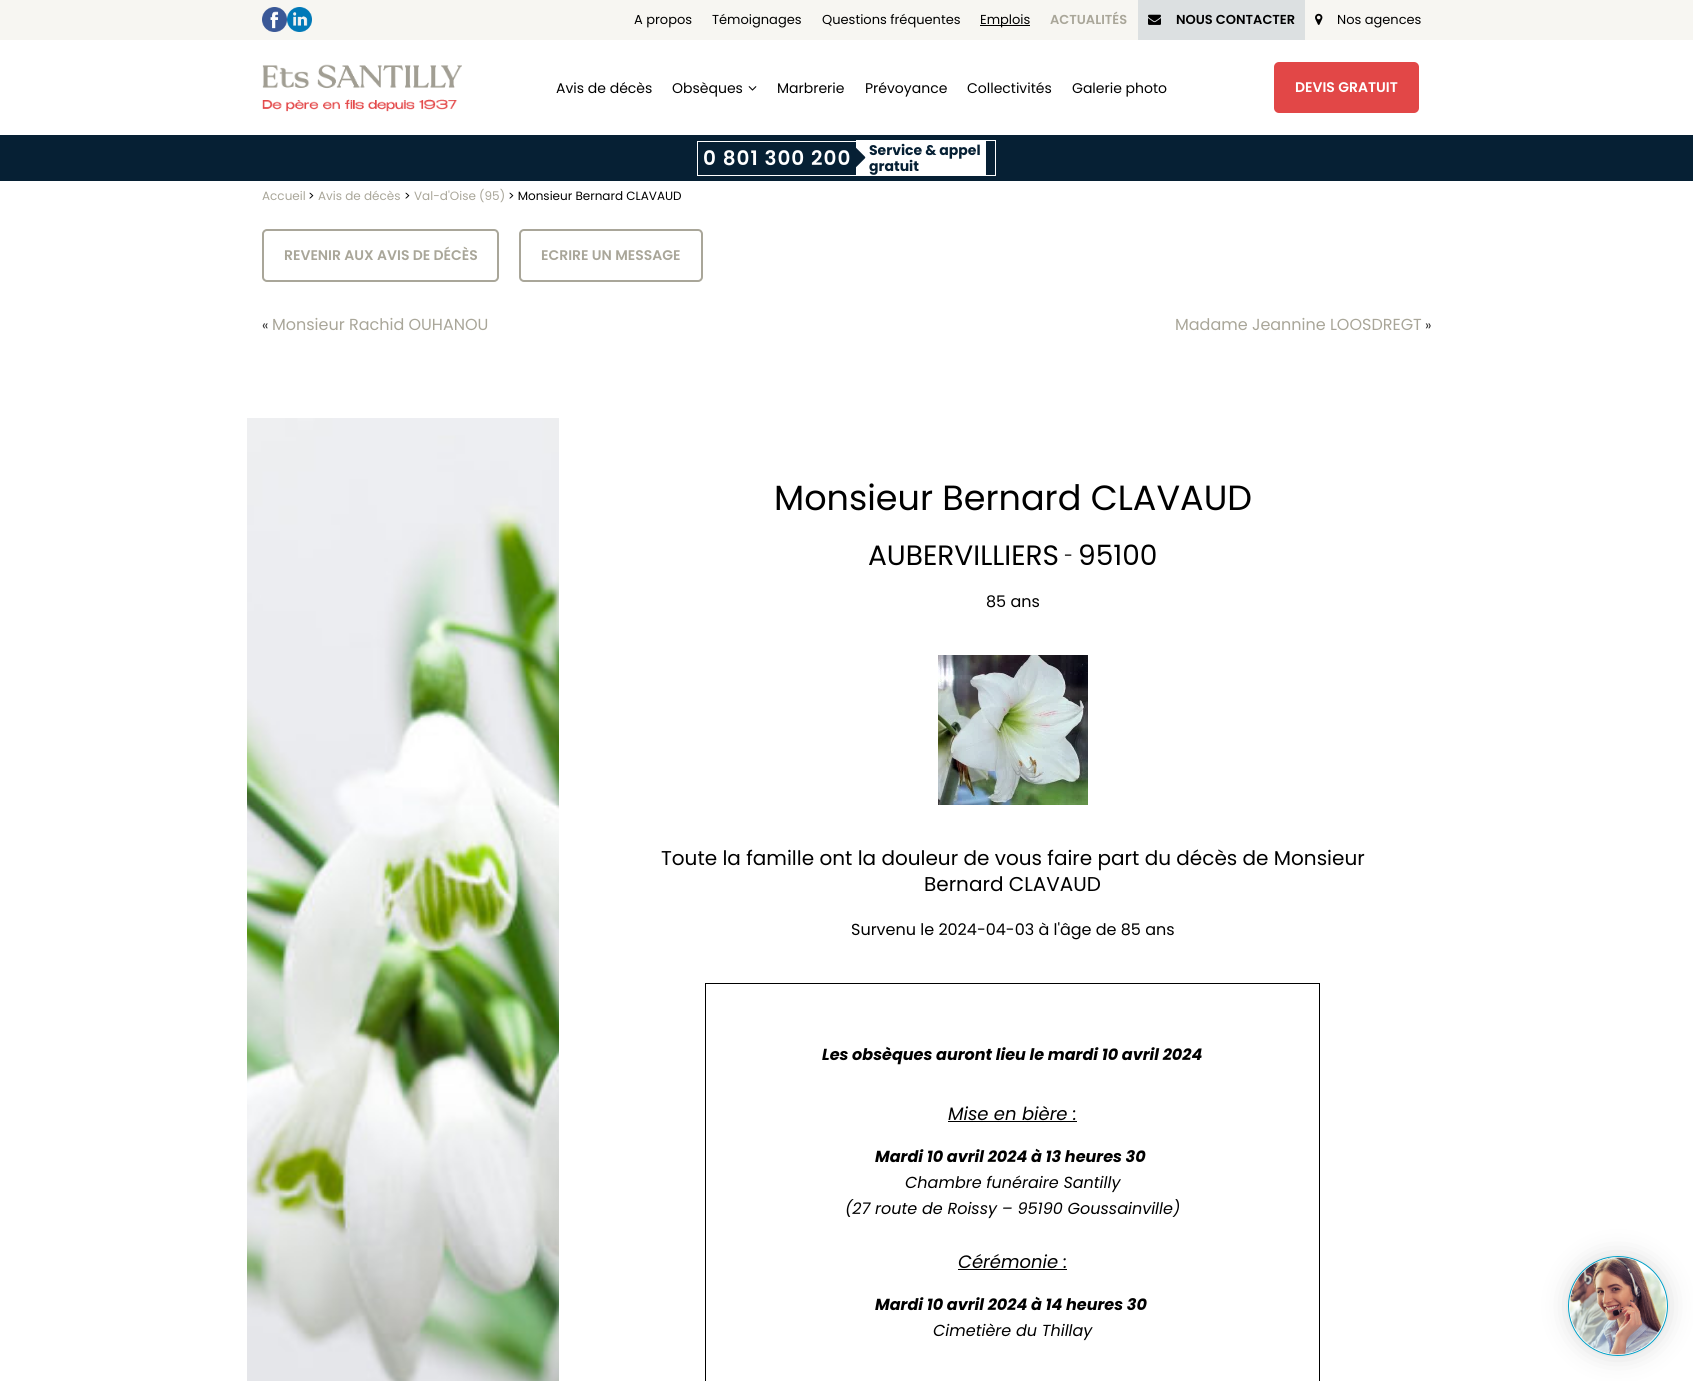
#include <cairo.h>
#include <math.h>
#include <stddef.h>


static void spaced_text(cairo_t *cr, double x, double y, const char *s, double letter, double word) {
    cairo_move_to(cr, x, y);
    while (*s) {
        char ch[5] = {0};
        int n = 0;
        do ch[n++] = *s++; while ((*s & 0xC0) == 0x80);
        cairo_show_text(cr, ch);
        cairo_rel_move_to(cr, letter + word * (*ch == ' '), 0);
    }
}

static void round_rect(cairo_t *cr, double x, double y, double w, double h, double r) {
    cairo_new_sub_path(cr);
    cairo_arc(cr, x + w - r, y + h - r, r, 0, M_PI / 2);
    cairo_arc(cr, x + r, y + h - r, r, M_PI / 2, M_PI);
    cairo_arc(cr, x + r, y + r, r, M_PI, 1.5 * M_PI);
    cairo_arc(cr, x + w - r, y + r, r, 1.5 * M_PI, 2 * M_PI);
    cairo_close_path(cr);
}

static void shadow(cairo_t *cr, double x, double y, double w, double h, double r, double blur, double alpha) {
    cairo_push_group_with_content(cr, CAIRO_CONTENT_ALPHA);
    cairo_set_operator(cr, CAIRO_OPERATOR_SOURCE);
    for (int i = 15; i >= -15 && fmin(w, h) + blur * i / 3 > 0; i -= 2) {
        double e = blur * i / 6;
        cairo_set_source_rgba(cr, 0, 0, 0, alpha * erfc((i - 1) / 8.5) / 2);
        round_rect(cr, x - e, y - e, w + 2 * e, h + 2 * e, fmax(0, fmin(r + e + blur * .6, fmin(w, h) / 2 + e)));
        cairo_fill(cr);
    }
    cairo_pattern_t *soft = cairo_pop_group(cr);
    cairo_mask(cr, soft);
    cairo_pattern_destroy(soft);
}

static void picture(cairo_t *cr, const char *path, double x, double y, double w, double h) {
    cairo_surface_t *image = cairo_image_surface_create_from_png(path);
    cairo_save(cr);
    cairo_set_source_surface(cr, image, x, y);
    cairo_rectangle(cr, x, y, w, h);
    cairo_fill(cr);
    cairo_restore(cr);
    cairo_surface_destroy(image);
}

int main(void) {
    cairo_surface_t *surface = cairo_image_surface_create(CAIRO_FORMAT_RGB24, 1693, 1381);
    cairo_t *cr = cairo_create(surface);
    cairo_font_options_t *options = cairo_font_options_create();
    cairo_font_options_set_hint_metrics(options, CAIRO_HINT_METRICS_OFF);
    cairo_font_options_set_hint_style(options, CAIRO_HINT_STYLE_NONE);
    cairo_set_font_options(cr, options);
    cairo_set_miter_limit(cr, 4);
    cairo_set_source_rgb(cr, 1, 1, 1);
    cairo_paint(cr);
    cairo_set_source_rgb(cr, 0.965, 0.961, 0.949);
    cairo_rectangle(cr, 0, 0, 1693, 40);
    cairo_fill(cr);
    picture(cr, "img1.png", 262, 7, 25, 25);
    picture(cr, "img2.png", 287, 7, 25, 25);
    cairo_select_font_face(cr, "Poppins", CAIRO_FONT_SLANT_NORMAL, CAIRO_FONT_WEIGHT_NORMAL);
    cairo_set_font_size(cr, 13);
    cairo_set_source_rgb(cr, 0, 0, 0);
    cairo_move_to(cr, 634, 24);
    cairo_show_text(cr, "A propos");
    cairo_move_to(cr, 712, 24);
    cairo_show_text(cr, "Témoignages");
    cairo_move_to(cr, 822, 24);
    cairo_show_text(cr, "Questions fréquentes");
    cairo_rectangle(cr, 980, 25, 50, 1);
    cairo_fill(cr);
    cairo_move_to(cr, 980, 24);
    cairo_show_text(cr, "Emplois");
    cairo_select_font_face(cr, "Poppins SemiBold", CAIRO_FONT_SLANT_NORMAL, CAIRO_FONT_WEIGHT_NORMAL);
    cairo_set_source_rgb(cr, 0.663, 0.651, 0.6);
    cairo_move_to(cr, 1050, 24);
    cairo_show_text(cr, "ACTUALITÉS");
    cairo_set_source_rgb(cr, 0.863, 0.878, 0.882);
    cairo_rectangle(cr, 1138, 0, 167, 40);
    cairo_fill(cr);
    picture(cr, "img3.png", 1148, 14, 13, 11);
    cairo_set_source_rgb(cr, 0, 0, 0);
    cairo_move_to(cr, 1176, 24);
    cairo_show_text(cr, "NOUS CONTACTER");
    picture(cr, "img4.png", 1315, 13, 8, 12);
    cairo_select_font_face(cr, "Poppins", CAIRO_FONT_SLANT_NORMAL, CAIRO_FONT_WEIGHT_NORMAL);
    cairo_move_to(cr, 1337, 24);
    cairo_show_text(cr, "Nos agences");
    picture(cr, "img5.png", 262, 64, 200, 48);
    cairo_set_font_size(cr, 14);
    cairo_move_to(cr, 556, 93);
    cairo_show_text(cr, "Avis de décès");
    cairo_move_to(cr, 672, 93);
    cairo_show_text(cr, "Obsèques");
    picture(cr, "img6.png", 748, 86, 9, 5);
    cairo_move_to(cr, 777, 93);
    cairo_show_text(cr, "Marbrerie");
    cairo_move_to(cr, 865, 93);
    cairo_show_text(cr, "Prévoyance");
    cairo_move_to(cr, 967, 93);
    cairo_show_text(cr, "Collectivités");
    cairo_move_to(cr, 1072, 93);
    cairo_show_text(cr, "Galerie photo");
    cairo_set_source_rgb(cr, 0.886, 0.278, 0.278);
    round_rect(cr, 1274, 62, 145, 51, 5);
    cairo_fill(cr);
    cairo_select_font_face(cr, "Poppins SemiBold", CAIRO_FONT_SLANT_NORMAL, CAIRO_FONT_WEIGHT_NORMAL);
    cairo_set_source_rgb(cr, 1, 1, 1);
    cairo_move_to(cr, 1295, 92);
    cairo_show_text(cr, "DEVIS GRATUIT");
    cairo_set_source_rgb(cr, 0.027, 0.125, 0.204);
    cairo_rectangle(cr, 0, 135, 1693, 46);
    cairo_fill(cr);
    cairo_set_source_rgb(cr, 1, 1, 1);
    cairo_rectangle(cr, 697, 141, 159, 1);
    cairo_fill(cr);
    cairo_rectangle(cr, 697, 175, 159, 1);
    cairo_fill(cr);
    cairo_rectangle(cr, 697, 141, 1, 35);
    cairo_fill(cr);
    cairo_set_font_size(cr, 20);
    spaced_text(cr, 703, 165, "0 801 300 200", 1, 0);
    cairo_rectangle(cr, 856, 140, 130, 36);
    cairo_fill(cr);
    picture(cr, "img7.png", 856, 147, 10, 21);
    cairo_select_font_face(cr, "Poppins", CAIRO_FONT_SLANT_NORMAL, CAIRO_FONT_WEIGHT_BOLD);
    cairo_set_font_size(cr, 14);
    cairo_set_source_rgb(cr, 0.027, 0.125, 0.204);
    cairo_move_to(cr, 869, 155);
    cairo_show_text(cr, "Service & appel");
    cairo_move_to(cr, 869, 171);
    cairo_show_text(cr, "gratuit");
    cairo_set_source_rgb(cr, 1, 1, 1);
    cairo_rectangle(cr, 986, 140, 10, 1);
    cairo_fill(cr);
    cairo_rectangle(cr, 995, 140, 1, 36);
    cairo_fill(cr);
    cairo_rectangle(cr, 986, 175, 10, 1);
    cairo_fill(cr);
    cairo_select_font_face(cr, "Poppins", CAIRO_FONT_SLANT_NORMAL, CAIRO_FONT_WEIGHT_NORMAL);
    cairo_set_font_size(cr, 12);
    cairo_set_source_rgb(cr, 0.663, 0.651, 0.6);
    cairo_move_to(cr, 262, 200);
    cairo_show_text(cr, "Accueil");
    cairo_set_source_rgb(cr, 0, 0, 0);
    cairo_move_to(cr, 308, 200);
    cairo_show_text(cr, ">");
    cairo_set_source_rgb(cr, 0.663, 0.651, 0.6);
    cairo_move_to(cr, 318, 200);
    cairo_show_text(cr, "Avis de décès");
    cairo_set_source_rgb(cr, 0, 0, 0);
    cairo_move_to(cr, 404, 200);
    cairo_show_text(cr, ">");
    cairo_set_source_rgb(cr, 0.663, 0.651, 0.6);
    cairo_move_to(cr, 414, 200);
    cairo_show_text(cr, "Val-d'Oise (95)");
    cairo_set_source_rgb(cr, 0, 0, 0);
    cairo_move_to(cr, 508, 200);
    cairo_show_text(cr, "> Monsieur Bernard CLAVAUD");
    round_rect(cr, 263, 230, 235, 51, 4);
    cairo_set_source_rgb(cr, 0.663, 0.651, 0.6);
    cairo_stroke(cr);
    cairo_select_font_face(cr, "Poppins SemiBold", CAIRO_FONT_SLANT_NORMAL, CAIRO_FONT_WEIGHT_NORMAL);
    cairo_set_font_size(cr, 14);
    cairo_move_to(cr, 284, 260);
    cairo_show_text(cr, "REVENIR AUX AVIS DE DÉCÈS");
    round_rect(cr, 520, 230, 182, 51, 4);
    cairo_stroke(cr);
    cairo_move_to(cr, 541, 260);
    cairo_show_text(cr, "ECRIRE UN MESSAGE");
    cairo_select_font_face(cr, "Poppins", CAIRO_FONT_SLANT_NORMAL, CAIRO_FONT_WEIGHT_NORMAL);
    cairo_set_source_rgb(cr, 0.2, 0.2, 0.2);
    cairo_move_to(cr, 262, 330);
    cairo_show_text(cr, "«");
    cairo_set_font_size(cr, 16);
    cairo_set_source_rgb(cr, 0.663, 0.651, 0.6);
    cairo_move_to(cr, 272, 330);
    cairo_show_text(cr, "Monsieur Rachid OUHANOU");
    cairo_move_to(cr, 1175, 330);
    cairo_show_text(cr, "Madame Jeannine LOOSDREGT");
    cairo_set_font_size(cr, 14);
    cairo_set_source_rgb(cr, 0.2, 0.2, 0.2);
    cairo_move_to(cr, 1425, 330);
    cairo_show_text(cr, "»");
    picture(cr, "img8.png", 247, 418, 312, 963);
    cairo_set_font_size(cr, 35);
    cairo_set_source_rgb(cr, 0, 0, 0);
    cairo_move_to(cr, 774, 510);
    cairo_show_text(cr, "Monsieur Bernard CLAVAUD");
    cairo_set_font_size(cr, 28);
    cairo_move_to(cr, 868, 565);
    cairo_show_text(cr, "AUBERVILLIERS");
    cairo_set_font_size(cr, 16);
    cairo_move_to(cr, 1064, 561);
    cairo_show_text(cr, "-");
    cairo_set_font_size(cr, 28);
    cairo_move_to(cr, 1078, 565);
    cairo_show_text(cr, "95100");
    cairo_set_font_size(cr, 16);
    cairo_move_to(cr, 986, 607);
    cairo_show_text(cr, "85 ans");
    picture(cr, "img9.png", 938, 655, 150, 150);
    cairo_set_font_size(cr, 20);
    cairo_move_to(cr, 661, 865);
    cairo_show_text(cr, "Toute la famille ont la douleur de vous faire part du décès de Monsieur");
    cairo_move_to(cr, 924, 891);
    cairo_show_text(cr, "Bernard CLAVAUD");
    cairo_set_font_size(cr, 16);
    cairo_move_to(cr, 851, 935);
    cairo_show_text(cr, "Survenu le 2024-04-03 à l'âge de 85 ans");
    cairo_rectangle(cr, 705.5, 983.5, 614, 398);
    cairo_set_line_width(cr, 1);
    cairo_stroke(cr);
    cairo_select_font_face(cr, "Poppins", CAIRO_FONT_SLANT_ITALIC, CAIRO_FONT_WEIGHT_BOLD);
    cairo_move_to(cr, 822, 1060);
    cairo_show_text(cr, "Les obsèques auront lieu le mardi 10 avril 2024");
    cairo_select_font_face(cr, "Poppins", CAIRO_FONT_SLANT_ITALIC, CAIRO_FONT_WEIGHT_NORMAL);
    cairo_set_font_size(cr, 18);
    cairo_move_to(cr, 948, 1120);
    cairo_show_text(cr, "Mise en bière :");
    cairo_rectangle(cr, 948, 1121, 129, 1);
    cairo_fill(cr);
    cairo_select_font_face(cr, "Poppins", CAIRO_FONT_SLANT_ITALIC, CAIRO_FONT_WEIGHT_BOLD);
    cairo_set_font_size(cr, 16);
    cairo_move_to(cr, 875, 1162);
    cairo_show_text(cr, "Mardi 10 avril 2024 à 13 heures 30");
    cairo_select_font_face(cr, "Poppins", CAIRO_FONT_SLANT_ITALIC, CAIRO_FONT_WEIGHT_NORMAL);
    cairo_move_to(cr, 905, 1188);
    cairo_show_text(cr, "Chambre funéraire Santilly");
    cairo_move_to(cr, 845, 1214);
    cairo_show_text(cr, "(27 route de Roissy – 95190 Goussainville)");
    cairo_set_font_size(cr, 18);
    cairo_move_to(cr, 958, 1268);
    cairo_show_text(cr, "Cérémonie :");
    cairo_rectangle(cr, 958, 1269, 109, 1);
    cairo_fill(cr);
    cairo_select_font_face(cr, "Poppins", CAIRO_FONT_SLANT_ITALIC, CAIRO_FONT_WEIGHT_BOLD);
    cairo_set_font_size(cr, 16);
    cairo_move_to(cr, 875, 1310);
    cairo_show_text(cr, "Mardi 10 avril 2024 à 14 heures 30");
    cairo_select_font_face(cr, "Poppins", CAIRO_FONT_SLANT_ITALIC, CAIRO_FONT_WEIGHT_NORMAL);
    cairo_move_to(cr, 933, 1336);
    cairo_show_text(cr, "Cimetière du Thillay");
    cairo_set_source_rgb(cr, 0.855, 0.855, 0.855);
    shadow(cr, 1568, 1256, 100, 100, 50, 12.5, 1);
    cairo_set_source_rgb(cr, 1, 1, 1);
    cairo_arc(cr, 1618, 1306, 49.5, 0, 2 * M_PI);
    cairo_fill_preserve(cr);
    cairo_set_source_rgb(cr, 0.004, 0.627, 0.78);
    cairo_stroke(cr);
    picture(cr, "img10.png", 1569, 1257, 98, 98);
    cairo_surface_write_to_png(surface, "page.png");
    cairo_font_options_destroy(options);
    cairo_destroy(cr);
    cairo_surface_destroy(surface);
    return 0;
}
